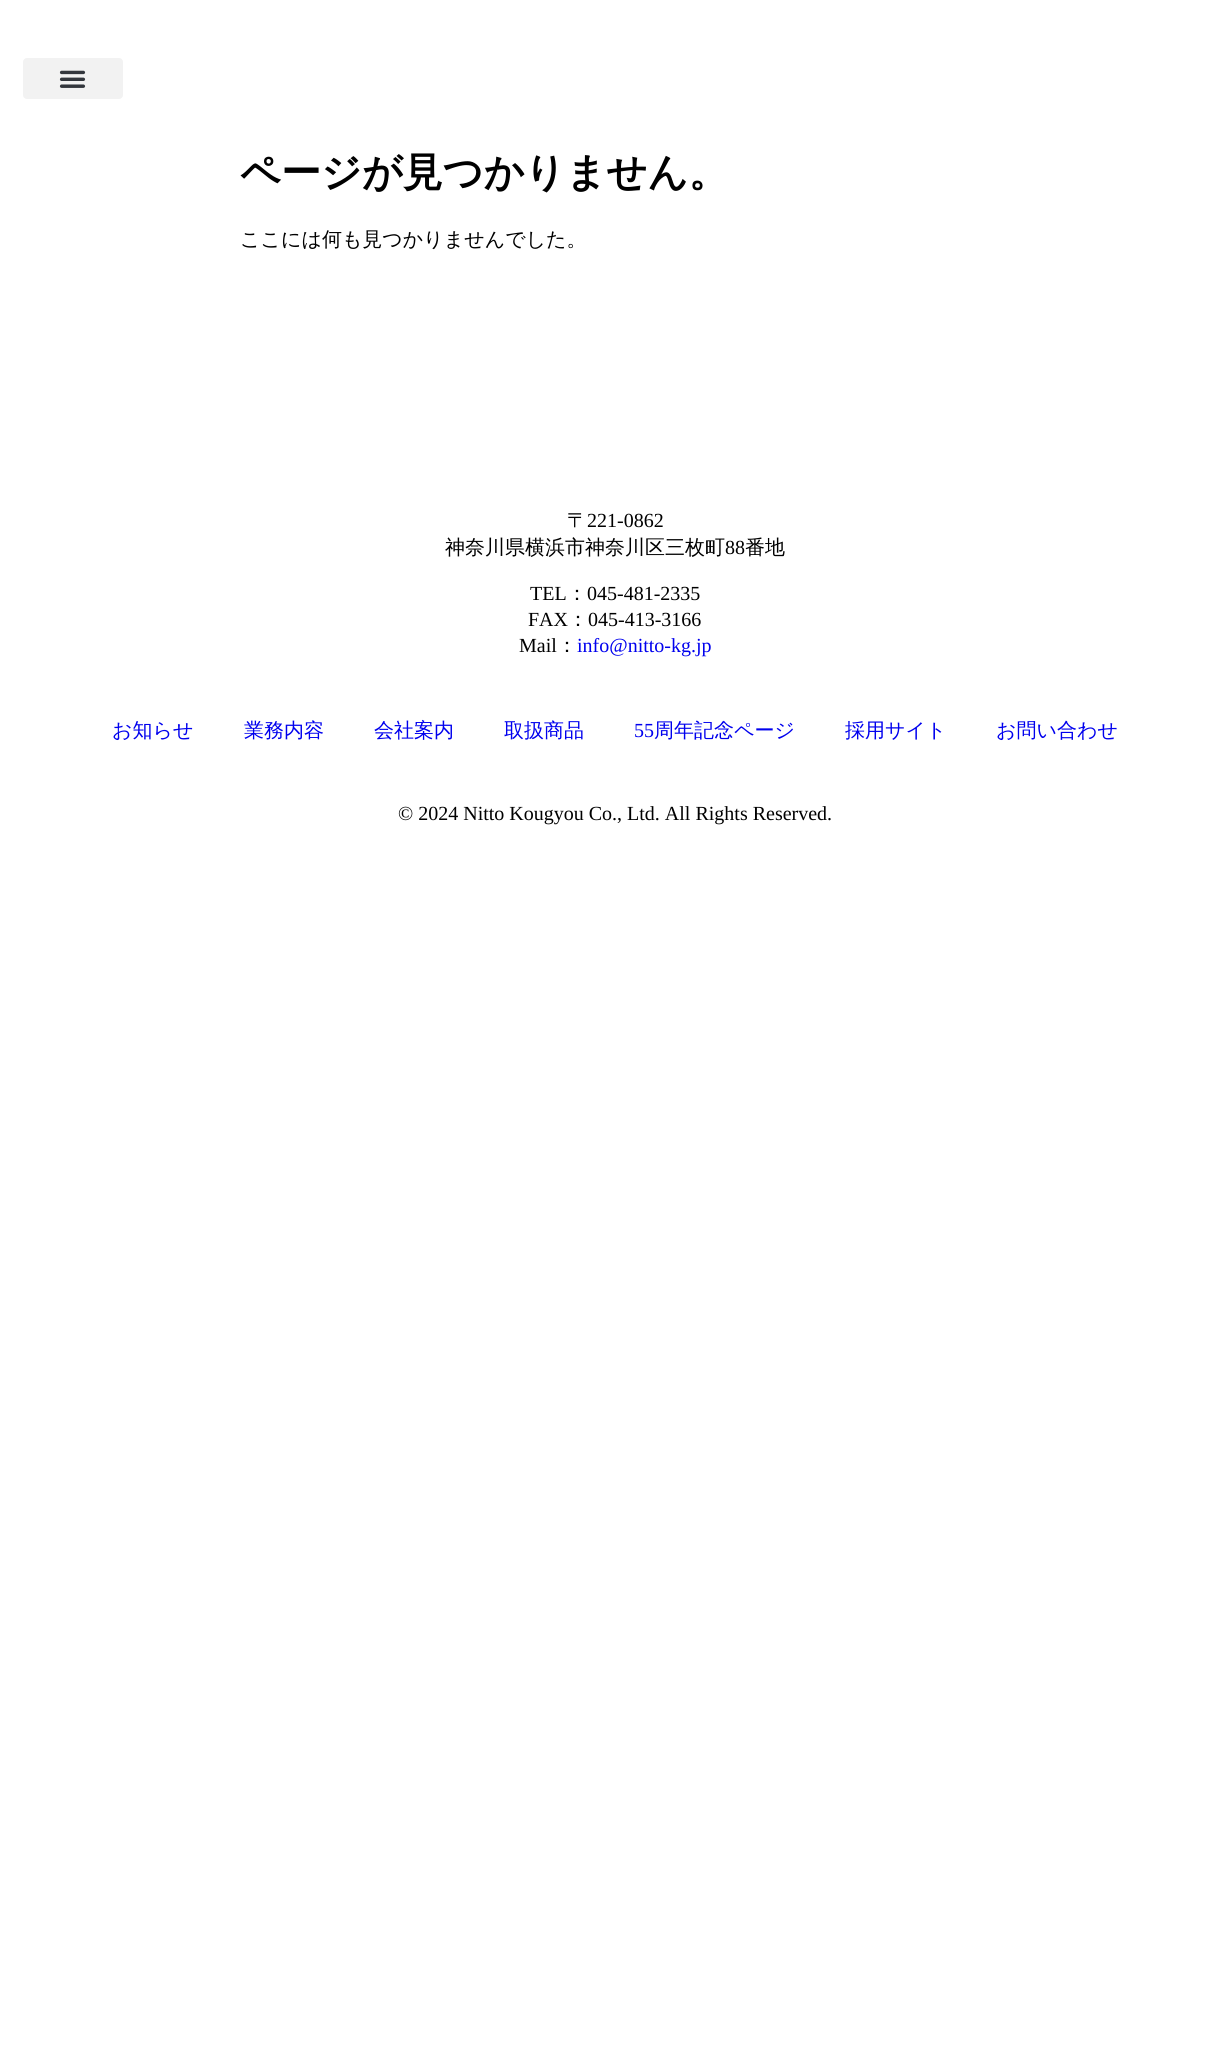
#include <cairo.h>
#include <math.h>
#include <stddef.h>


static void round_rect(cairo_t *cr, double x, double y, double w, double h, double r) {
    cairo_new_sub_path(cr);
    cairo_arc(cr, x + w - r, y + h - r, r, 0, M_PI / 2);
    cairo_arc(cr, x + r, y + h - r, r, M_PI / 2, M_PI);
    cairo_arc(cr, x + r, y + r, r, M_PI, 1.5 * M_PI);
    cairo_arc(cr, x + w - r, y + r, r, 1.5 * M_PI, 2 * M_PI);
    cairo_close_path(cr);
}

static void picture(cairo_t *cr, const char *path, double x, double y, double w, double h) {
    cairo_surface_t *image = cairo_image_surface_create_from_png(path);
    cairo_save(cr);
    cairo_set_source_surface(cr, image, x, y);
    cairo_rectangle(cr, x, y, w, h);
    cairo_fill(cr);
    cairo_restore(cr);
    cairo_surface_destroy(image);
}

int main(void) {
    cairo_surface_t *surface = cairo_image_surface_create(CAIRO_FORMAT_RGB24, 1229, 2066);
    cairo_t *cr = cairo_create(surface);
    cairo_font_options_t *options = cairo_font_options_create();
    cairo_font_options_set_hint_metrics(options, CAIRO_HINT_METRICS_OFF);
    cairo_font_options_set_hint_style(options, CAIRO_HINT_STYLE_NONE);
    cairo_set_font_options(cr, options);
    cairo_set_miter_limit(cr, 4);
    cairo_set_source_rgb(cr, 1, 1, 1);
    cairo_paint(cr);
    cairo_set_source_rgb(cr, 0.949, 0.949, 0.949);
    round_rect(cr, 23, 58, 100, 41, 4);
    cairo_fill(cr);
    picture(cr, "img1.png", 59, 70, 27, 18);
    cairo_select_font_face(cr, "WenQuanYi Zen Hei", CAIRO_FONT_SLANT_NORMAL, CAIRO_FONT_WEIGHT_BOLD);
    cairo_set_font_size(cr, 40);
    cairo_set_source_rgb(cr, 0, 0, 0);
    cairo_move_to(cr, 240, 186);
    cairo_show_text(cr, "ページが見つかりません。");
    cairo_select_font_face(cr, "WenQuanYi Zen Hei Medium", CAIRO_FONT_SLANT_NORMAL, CAIRO_FONT_WEIGHT_NORMAL);
    cairo_set_font_size(cr, 20);
    cairo_move_to(cr, 240, 246);
    cairo_show_text(cr, "ここには何も見つかりませんでした。");
    cairo_move_to(cr, 567, 527);
    cairo_show_text(cr, "〒");
    cairo_select_font_face(cr, "Liberation Serif", CAIRO_FONT_SLANT_NORMAL, CAIRO_FONT_WEIGHT_NORMAL);
    cairo_move_to(cr, 587, 527);
    cairo_show_text(cr, "221-0862");
    cairo_select_font_face(cr, "WenQuanYi Zen Hei Medium", CAIRO_FONT_SLANT_NORMAL, CAIRO_FONT_WEIGHT_NORMAL);
    cairo_move_to(cr, 445, 554);
    cairo_show_text(cr, "神奈川県横浜市神奈川区三枚町");
    cairo_select_font_face(cr, "Liberation Serif", CAIRO_FONT_SLANT_NORMAL, CAIRO_FONT_WEIGHT_NORMAL);
    cairo_move_to(cr, 725, 554);
    cairo_show_text(cr, "88");
    cairo_select_font_face(cr, "WenQuanYi Zen Hei Medium", CAIRO_FONT_SLANT_NORMAL, CAIRO_FONT_WEIGHT_NORMAL);
    cairo_move_to(cr, 745, 554);
    cairo_show_text(cr, "番地");
    cairo_select_font_face(cr, "Liberation Serif", CAIRO_FONT_SLANT_NORMAL, CAIRO_FONT_WEIGHT_NORMAL);
    cairo_move_to(cr, 530, 600);
    cairo_show_text(cr, "TEL");
    cairo_select_font_face(cr, "WenQuanYi Zen Hei Medium", CAIRO_FONT_SLANT_NORMAL, CAIRO_FONT_WEIGHT_NORMAL);
    cairo_move_to(cr, 567, 600);
    cairo_show_text(cr, "：");
    cairo_select_font_face(cr, "Liberation Serif", CAIRO_FONT_SLANT_NORMAL, CAIRO_FONT_WEIGHT_NORMAL);
    cairo_move_to(cr, 587, 600);
    cairo_show_text(cr, "045-481-2335");
    cairo_move_to(cr, 528, 626);
    cairo_show_text(cr, "FAX");
    cairo_select_font_face(cr, "WenQuanYi Zen Hei Medium", CAIRO_FONT_SLANT_NORMAL, CAIRO_FONT_WEIGHT_NORMAL);
    cairo_move_to(cr, 568, 626);
    cairo_show_text(cr, "：");
    cairo_select_font_face(cr, "Liberation Serif", CAIRO_FONT_SLANT_NORMAL, CAIRO_FONT_WEIGHT_NORMAL);
    cairo_move_to(cr, 588, 626);
    cairo_show_text(cr, "045-413-3166");
    cairo_move_to(cr, 519, 652);
    cairo_show_text(cr, "Mail");
    cairo_select_font_face(cr, "WenQuanYi Zen Hei Medium", CAIRO_FONT_SLANT_NORMAL, CAIRO_FONT_WEIGHT_NORMAL);
    cairo_move_to(cr, 557, 652);
    cairo_show_text(cr, "：");
    cairo_select_font_face(cr, "Liberation Serif", CAIRO_FONT_SLANT_NORMAL, CAIRO_FONT_WEIGHT_NORMAL);
    cairo_set_source_rgb(cr, 0, 0, 0.933);
    cairo_move_to(cr, 577, 652);
    cairo_show_text(cr, "info@nitto-kg.jp");
    cairo_select_font_face(cr, "WenQuanYi Zen Hei Medium", CAIRO_FONT_SLANT_NORMAL, CAIRO_FONT_WEIGHT_NORMAL);
    cairo_move_to(cr, 112, 737);
    cairo_show_text(cr, "お知らせ");
    cairo_move_to(cr, 244, 737);
    cairo_show_text(cr, "業務内容");
    cairo_move_to(cr, 374, 737);
    cairo_show_text(cr, "会社案内");
    cairo_move_to(cr, 504, 737);
    cairo_show_text(cr, "取扱商品");
    cairo_select_font_face(cr, "Liberation Serif", CAIRO_FONT_SLANT_NORMAL, CAIRO_FONT_WEIGHT_NORMAL);
    cairo_move_to(cr, 634, 737);
    cairo_show_text(cr, "55");
    cairo_select_font_face(cr, "WenQuanYi Zen Hei Medium", CAIRO_FONT_SLANT_NORMAL, CAIRO_FONT_WEIGHT_NORMAL);
    cairo_move_to(cr, 654, 737);
    cairo_show_text(cr, "周年記念ページ");
    cairo_move_to(cr, 845, 737);
    cairo_show_text(cr, "採用サイト");
    cairo_move_to(cr, 996, 737);
    cairo_show_text(cr, "お問い合わせ");
    cairo_select_font_face(cr, "Liberation Serif", CAIRO_FONT_SLANT_NORMAL, CAIRO_FONT_WEIGHT_NORMAL);
    cairo_set_source_rgb(cr, 0, 0, 0);
    cairo_move_to(cr, 398, 820);
    cairo_show_text(cr, "© 2024 Nitto Kougyou Co., Ltd. All Rights Reserved.");
    cairo_surface_write_to_png(surface, "page.png");
    cairo_font_options_destroy(options);
    cairo_destroy(cr);
    cairo_surface_destroy(surface);
    return 0;
}
